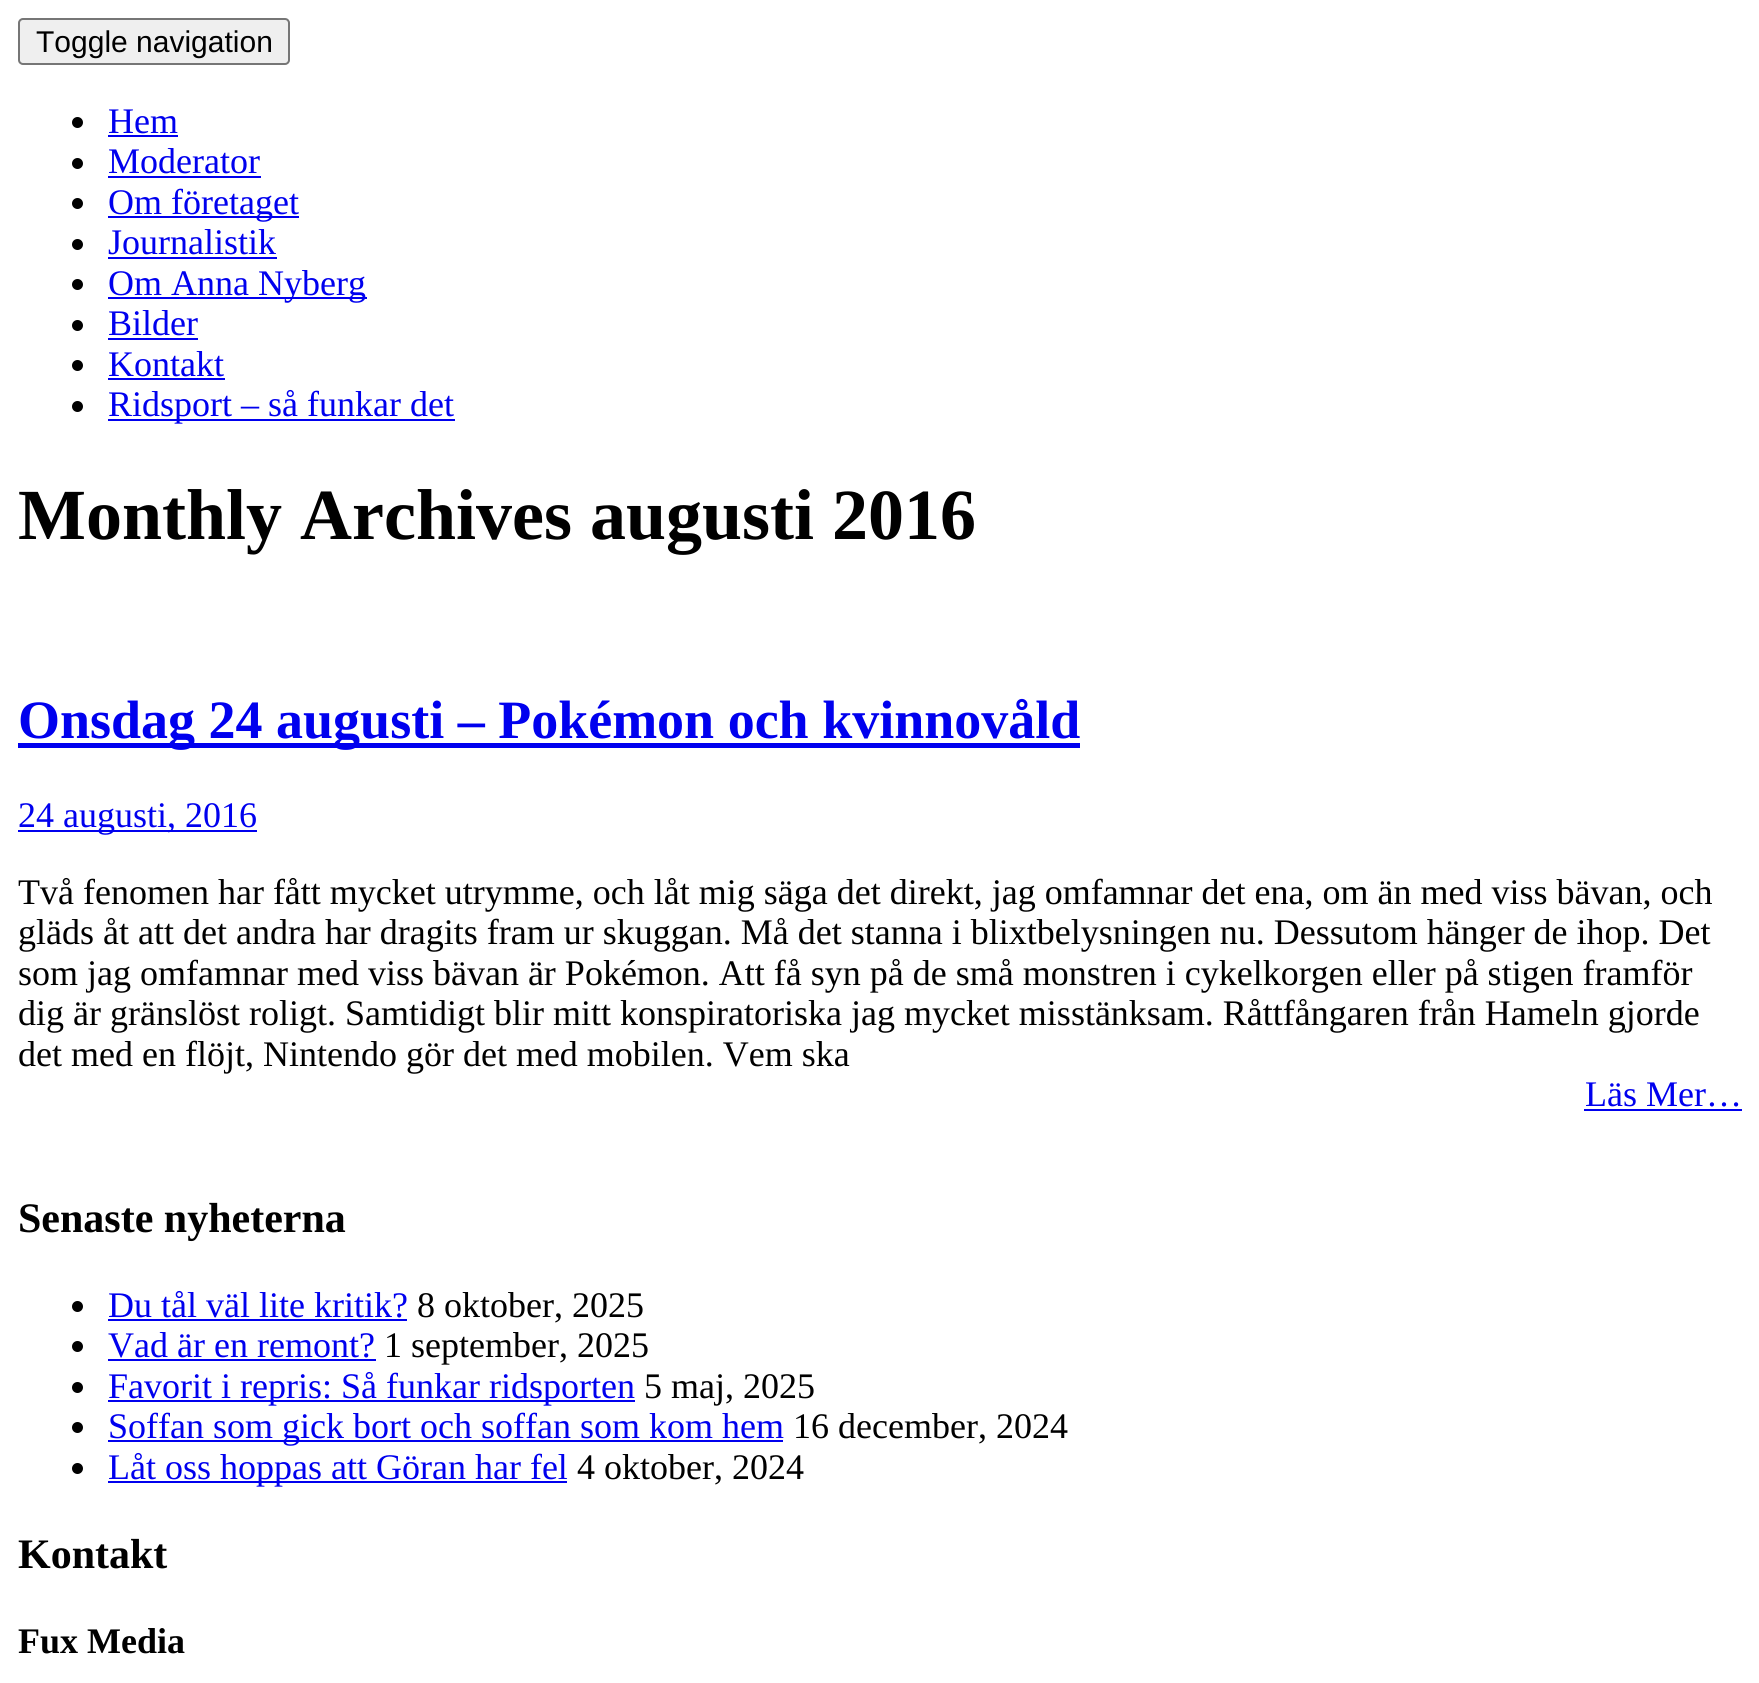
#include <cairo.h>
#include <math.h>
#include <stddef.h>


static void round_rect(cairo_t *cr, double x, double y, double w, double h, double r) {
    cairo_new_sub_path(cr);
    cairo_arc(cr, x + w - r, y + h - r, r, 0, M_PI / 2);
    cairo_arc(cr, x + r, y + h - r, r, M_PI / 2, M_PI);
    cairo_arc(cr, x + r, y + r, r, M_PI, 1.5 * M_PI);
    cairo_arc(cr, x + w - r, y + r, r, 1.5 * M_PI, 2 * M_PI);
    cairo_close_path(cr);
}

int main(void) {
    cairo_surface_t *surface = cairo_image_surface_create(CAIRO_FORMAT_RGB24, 1759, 1683);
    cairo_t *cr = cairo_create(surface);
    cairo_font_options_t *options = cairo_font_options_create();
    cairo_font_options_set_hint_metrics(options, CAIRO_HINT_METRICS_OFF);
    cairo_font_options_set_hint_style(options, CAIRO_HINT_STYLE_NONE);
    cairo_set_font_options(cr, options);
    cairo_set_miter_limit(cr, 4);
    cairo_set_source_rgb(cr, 1, 1, 1);
    cairo_paint(cr);
    cairo_set_source_rgb(cr, 0.937, 0.937, 0.937);
    round_rect(cr, 19, 19, 270, 45, 4);
    cairo_fill_preserve(cr);
    cairo_set_source_rgb(cr, 0.463, 0.463, 0.463);
    cairo_stroke(cr);
    cairo_select_font_face(cr, "Liberation Sans", CAIRO_FONT_SLANT_NORMAL, CAIRO_FONT_WEIGHT_NORMAL);
    cairo_set_font_size(cr, 30);
    cairo_set_source_rgb(cr, 0, 0, 0);
    cairo_move_to(cr, 36, 52);
    cairo_show_text(cr, "Toggle navigation");
    cairo_new_path(cr);
    cairo_arc(cr, 77.5, 122.5, 5.5, 0, 2 * M_PI);
    cairo_fill(cr);
    cairo_select_font_face(cr, "Liberation Serif", CAIRO_FONT_SLANT_NORMAL, CAIRO_FONT_WEIGHT_NORMAL);
    cairo_set_font_size(cr, 36);
    cairo_set_source_rgb(cr, 0, 0, 0.933);
    cairo_move_to(cr, 108, 133);
    cairo_show_text(cr, "Hem");
    cairo_rectangle(cr, 108, 135, 70, 2);
    cairo_fill(cr);
    cairo_set_source_rgb(cr, 0, 0, 0);
    cairo_arc(cr, 77.5, 163.5, 5.5, 0, 2 * M_PI);
    cairo_fill(cr);
    cairo_set_source_rgb(cr, 0, 0, 0.933);
    cairo_move_to(cr, 108, 173);
    cairo_show_text(cr, "Moderator");
    cairo_rectangle(cr, 108, 176, 153, 2);
    cairo_fill(cr);
    cairo_set_source_rgb(cr, 0, 0, 0);
    cairo_arc(cr, 77.5, 203.5, 5.5, 0, 2 * M_PI);
    cairo_fill(cr);
    cairo_set_source_rgb(cr, 0, 0, 0.933);
    cairo_rectangle(cr, 108, 216, 191, 2);
    cairo_fill(cr);
    cairo_move_to(cr, 108, 214);
    cairo_show_text(cr, "Om företaget");
    cairo_set_source_rgb(cr, 0, 0, 0);
    cairo_new_path(cr);
    cairo_arc(cr, 77.5, 244.5, 5.5, 0, 2 * M_PI);
    cairo_fill(cr);
    cairo_set_source_rgb(cr, 0, 0, 0.933);
    cairo_move_to(cr, 108, 254);
    cairo_show_text(cr, "Journalistik");
    cairo_rectangle(cr, 108, 257, 169, 2);
    cairo_fill(cr);
    cairo_set_source_rgb(cr, 0, 0, 0);
    cairo_arc(cr, 77.5, 284.5, 5.5, 0, 2 * M_PI);
    cairo_fill(cr);
    cairo_set_source_rgb(cr, 0, 0, 0.933);
    cairo_rectangle(cr, 108, 297, 259, 2);
    cairo_fill(cr);
    cairo_move_to(cr, 108, 295);
    cairo_show_text(cr, "Om Anna Nyberg");
    cairo_set_source_rgb(cr, 0, 0, 0);
    cairo_new_path(cr);
    cairo_arc(cr, 77.5, 325.5, 5.5, 0, 2 * M_PI);
    cairo_fill(cr);
    cairo_set_source_rgb(cr, 0, 0, 0.933);
    cairo_move_to(cr, 108, 335);
    cairo_show_text(cr, "Bilder");
    cairo_rectangle(cr, 108, 338, 90, 2);
    cairo_fill(cr);
    cairo_set_source_rgb(cr, 0, 0, 0);
    cairo_arc(cr, 77.5, 365.5, 5.5, 0, 2 * M_PI);
    cairo_fill(cr);
    cairo_set_source_rgb(cr, 0, 0, 0.933);
    cairo_move_to(cr, 108, 376);
    cairo_show_text(cr, "Kontakt");
    cairo_rectangle(cr, 108, 378, 117, 2);
    cairo_fill(cr);
    cairo_set_source_rgb(cr, 0, 0, 0);
    cairo_arc(cr, 77.5, 406.5, 5.5, 0, 2 * M_PI);
    cairo_fill(cr);
    cairo_set_source_rgb(cr, 0, 0, 0.933);
    cairo_rectangle(cr, 108, 419, 347, 2);
    cairo_fill(cr);
    cairo_move_to(cr, 108, 416);
    cairo_show_text(cr, "Ridsport – så funkar det");
    cairo_select_font_face(cr, "Liberation Serif", CAIRO_FONT_SLANT_NORMAL, CAIRO_FONT_WEIGHT_BOLD);
    cairo_set_font_size(cr, 72);
    cairo_set_source_rgb(cr, 0, 0, 0);
    cairo_move_to(cr, 18, 539);
    cairo_show_text(cr, "Monthly Archives augusti 2016");
    cairo_set_source_rgb(cr, 0, 0, 0.933);
    cairo_rectangle(cr, 18, 743, 1062, 5);
    cairo_fill(cr);
    cairo_set_font_size(cr, 54);
    cairo_move_to(cr, 18, 738);
    cairo_show_text(cr, "Onsdag 24 augusti – Pokémon och kvinnovåld");
    cairo_rectangle(cr, 18, 830, 239, 2);
    cairo_fill(cr);
    cairo_select_font_face(cr, "Liberation Serif", CAIRO_FONT_SLANT_NORMAL, CAIRO_FONT_WEIGHT_NORMAL);
    cairo_set_font_size(cr, 36);
    cairo_move_to(cr, 18, 827);
    cairo_show_text(cr, "24 augusti, 2016");
    cairo_set_source_rgb(cr, 0, 0, 0);
    cairo_move_to(cr, 18, 904);
    cairo_show_text(cr, "Två fenomen har fått mycket utrymme, och låt mig säga det direkt, jag omfamnar det ena, om än med viss bävan, och");
    cairo_move_to(cr, 18, 944);
    cairo_show_text(cr, "gläds åt att det andra har dragits fram ur skuggan. Må det stanna i blixtbelysningen nu. Dessutom hänger de ihop. Det");
    cairo_move_to(cr, 18, 985);
    cairo_show_text(cr, "som jag omfamnar med viss bävan är Pokémon. Att få syn på de små monstren i cykelkorgen eller på stigen framför");
    cairo_move_to(cr, 18, 1025);
    cairo_show_text(cr, "dig är gränslöst roligt. Samtidigt blir mitt konspiratoriska jag mycket misstänksam. Råttfångaren från Hameln gjorde");
    cairo_move_to(cr, 18, 1066);
    cairo_show_text(cr, "det med en flöjt, Nintendo gör det med mobilen. Vem ska");
    cairo_set_source_rgb(cr, 0, 0, 0.933);
    cairo_move_to(cr, 1585, 1106);
    cairo_show_text(cr, "Läs Mer…");
    cairo_rectangle(cr, 1584, 1109, 158, 2);
    cairo_fill(cr);
    cairo_select_font_face(cr, "Liberation Serif", CAIRO_FONT_SLANT_NORMAL, CAIRO_FONT_WEIGHT_BOLD);
    cairo_set_font_size(cr, 42);
    cairo_set_source_rgb(cr, 0, 0, 0);
    cairo_move_to(cr, 18, 1232);
    cairo_show_text(cr, "Senaste nyheterna");
    cairo_new_path(cr);
    cairo_arc(cr, 77.5, 1306.5, 5.5, 0, 2 * M_PI);
    cairo_fill(cr);
    cairo_select_font_face(cr, "Liberation Serif", CAIRO_FONT_SLANT_NORMAL, CAIRO_FONT_WEIGHT_NORMAL);
    cairo_set_font_size(cr, 36);
    cairo_set_source_rgb(cr, 0, 0, 0.933);
    cairo_move_to(cr, 108, 1317);
    cairo_show_text(cr, "Du tål väl lite kritik?");
    cairo_rectangle(cr, 108, 1319, 299, 2);
    cairo_fill(cr);
    cairo_set_source_rgb(cr, 0, 0, 0);
    cairo_move_to(cr, 417, 1317);
    cairo_show_text(cr, "8 oktober, 2025");
    cairo_new_path(cr);
    cairo_arc(cr, 77.5, 1346.5, 5.5, 0, 2 * M_PI);
    cairo_fill(cr);
    cairo_set_source_rgb(cr, 0, 0, 0.933);
    cairo_move_to(cr, 108, 1357);
    cairo_show_text(cr, "Vad är en remont?");
    cairo_rectangle(cr, 108, 1359, 268, 2);
    cairo_fill(cr);
    cairo_set_source_rgb(cr, 0, 0, 0);
    cairo_move_to(cr, 384, 1357);
    cairo_show_text(cr, "1 september, 2025");
    cairo_new_path(cr);
    cairo_arc(cr, 77.5, 1387.5, 5.5, 0, 2 * M_PI);
    cairo_fill(cr);
    cairo_set_source_rgb(cr, 0, 0, 0.933);
    cairo_rectangle(cr, 108, 1400, 527, 2);
    cairo_fill(cr);
    cairo_move_to(cr, 108, 1398);
    cairo_show_text(cr, "Favorit i repris: Så funkar ridsporten");
    cairo_set_source_rgb(cr, 0, 0, 0);
    cairo_move_to(cr, 644, 1398);
    cairo_show_text(cr, "5 maj, 2025");
    cairo_new_path(cr);
    cairo_arc(cr, 77.5, 1427.5, 5.5, 0, 2 * M_PI);
    cairo_fill(cr);
    cairo_set_source_rgb(cr, 0, 0, 0.933);
    cairo_rectangle(cr, 108, 1440, 675, 2);
    cairo_fill(cr);
    cairo_move_to(cr, 108, 1438);
    cairo_show_text(cr, "Soffan som gick bort och soffan som kom hem");
    cairo_set_source_rgb(cr, 0, 0, 0);
    cairo_move_to(cr, 793, 1438);
    cairo_show_text(cr, "16 december, 2024");
    cairo_new_path(cr);
    cairo_arc(cr, 77.5, 1468.5, 5.5, 0, 2 * M_PI);
    cairo_fill(cr);
    cairo_set_source_rgb(cr, 0, 0, 0.933);
    cairo_rectangle(cr, 108, 1481, 459, 2);
    cairo_fill(cr);
    cairo_move_to(cr, 108, 1479);
    cairo_show_text(cr, "Låt oss hoppas att Göran har fel");
    cairo_set_source_rgb(cr, 0, 0, 0);
    cairo_move_to(cr, 577, 1479);
    cairo_show_text(cr, "4 oktober, 2024");
    cairo_select_font_face(cr, "Liberation Serif", CAIRO_FONT_SLANT_NORMAL, CAIRO_FONT_WEIGHT_BOLD);
    cairo_set_font_size(cr, 42);
    cairo_move_to(cr, 18, 1568);
    cairo_show_text(cr, "Kontakt");
    cairo_set_font_size(cr, 36);
    cairo_move_to(cr, 18, 1653);
    cairo_show_text(cr, "Fux Media");
    cairo_surface_write_to_png(surface, "page.png");
    cairo_font_options_destroy(options);
    cairo_destroy(cr);
    cairo_surface_destroy(surface);
    return 0;
}
